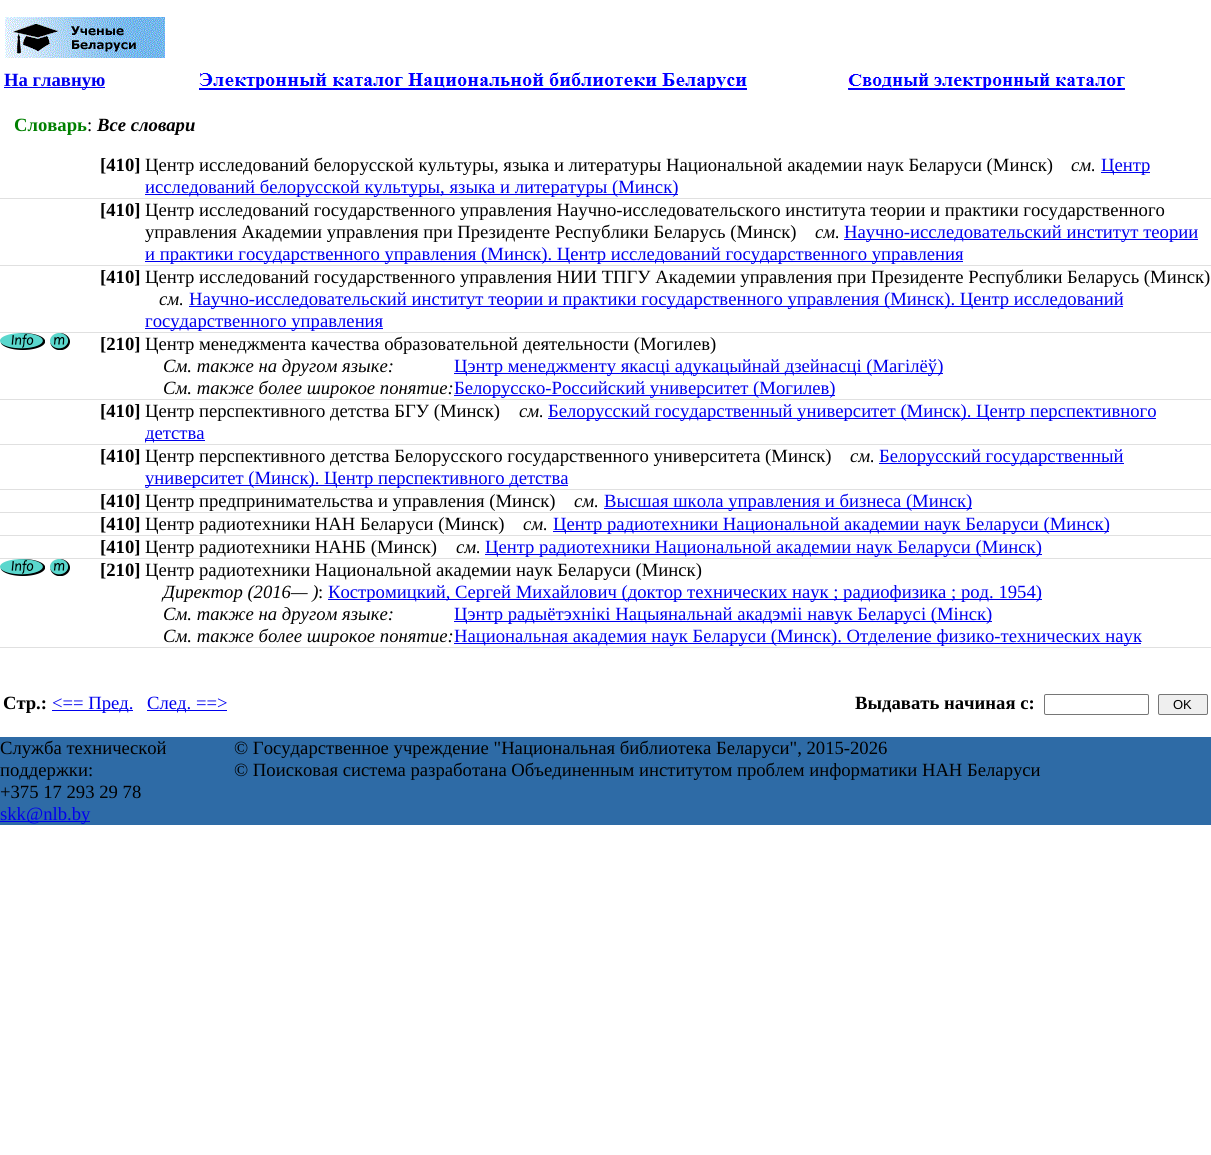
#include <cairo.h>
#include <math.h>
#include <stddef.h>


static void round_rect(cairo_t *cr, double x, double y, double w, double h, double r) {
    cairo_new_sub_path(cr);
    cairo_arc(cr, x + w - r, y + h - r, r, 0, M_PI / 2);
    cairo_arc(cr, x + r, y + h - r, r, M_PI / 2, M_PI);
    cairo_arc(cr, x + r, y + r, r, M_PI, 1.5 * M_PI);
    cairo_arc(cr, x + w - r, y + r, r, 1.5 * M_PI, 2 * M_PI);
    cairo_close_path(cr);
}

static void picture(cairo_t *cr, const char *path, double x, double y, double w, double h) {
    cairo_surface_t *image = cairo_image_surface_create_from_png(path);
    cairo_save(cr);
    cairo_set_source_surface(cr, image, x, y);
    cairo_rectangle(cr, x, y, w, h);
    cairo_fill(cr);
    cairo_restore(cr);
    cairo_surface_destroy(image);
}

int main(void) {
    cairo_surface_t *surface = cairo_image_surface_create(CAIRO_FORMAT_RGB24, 1211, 1155);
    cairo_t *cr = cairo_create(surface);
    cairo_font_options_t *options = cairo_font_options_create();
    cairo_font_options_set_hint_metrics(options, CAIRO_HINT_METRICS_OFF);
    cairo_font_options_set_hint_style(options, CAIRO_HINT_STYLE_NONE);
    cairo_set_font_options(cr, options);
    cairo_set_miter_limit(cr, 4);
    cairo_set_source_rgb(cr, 1, 1, 1);
    cairo_paint(cr);
    picture(cr, "img1.png", 5, 17, 160, 41);
    cairo_set_source_rgb(cr, 0, 0, 0.933);
    cairo_rectangle(cr, 4, 87, 101, 1);
    cairo_fill(cr);
    cairo_select_font_face(cr, "Liberation Serif", CAIRO_FONT_SLANT_NORMAL, CAIRO_FONT_WEIGHT_BOLD);
    cairo_set_font_size(cr, 18.67);
    cairo_move_to(cr, 4, 86);
    cairo_show_text(cr, "На главную");
    picture(cr, "img2.png", 199, 72, 548, 18);
    picture(cr, "img3.png", 848, 73, 277, 17);
    cairo_set_source_rgb(cr, 0, 0.502, 0);
    cairo_move_to(cr, 14, 131);
    cairo_show_text(cr, "Словарь");
    cairo_select_font_face(cr, "Liberation Serif", CAIRO_FONT_SLANT_NORMAL, CAIRO_FONT_WEIGHT_NORMAL);
    cairo_set_source_rgb(cr, 0, 0, 0);
    cairo_move_to(cr, 87, 131);
    cairo_show_text(cr, ":");
    cairo_select_font_face(cr, "Liberation Serif", CAIRO_FONT_SLANT_ITALIC, CAIRO_FONT_WEIGHT_BOLD);
    cairo_move_to(cr, 97, 131);
    cairo_show_text(cr, "Все словари");
    cairo_select_font_face(cr, "Liberation Serif", CAIRO_FONT_SLANT_NORMAL, CAIRO_FONT_WEIGHT_BOLD);
    cairo_move_to(cr, 100, 171);
    cairo_show_text(cr, "[410]");
    cairo_set_source_rgb(cr, 0.878, 0.878, 0.878);
    cairo_rectangle(cr, 0, 198, 1211, 1);
    cairo_fill(cr);
    cairo_select_font_face(cr, "Liberation Serif", CAIRO_FONT_SLANT_NORMAL, CAIRO_FONT_WEIGHT_NORMAL);
    cairo_set_source_rgb(cr, 0, 0, 0);
    cairo_move_to(cr, 145, 171);
    cairo_show_text(cr, "Центр исследований белорусской культуры, языка и литературы Национальной академии наук Беларуси (Минск)");
    cairo_select_font_face(cr, "Liberation Serif", CAIRO_FONT_SLANT_ITALIC, CAIRO_FONT_WEIGHT_NORMAL);
    cairo_move_to(cr, 1071, 171);
    cairo_show_text(cr, "см.");
    cairo_set_source_rgb(cr, 0, 0, 0.933);
    cairo_rectangle(cr, 1101, 172, 49, 1);
    cairo_fill(cr);
    cairo_select_font_face(cr, "Liberation Serif", CAIRO_FONT_SLANT_NORMAL, CAIRO_FONT_WEIGHT_NORMAL);
    cairo_move_to(cr, 1101, 171);
    cairo_show_text(cr, "Центр");
    cairo_rectangle(cr, 145, 194, 533, 1);
    cairo_fill(cr);
    cairo_move_to(cr, 145, 193);
    cairo_show_text(cr, "исследований белорусской культуры, языка и литературы (Минск)");
    cairo_select_font_face(cr, "Liberation Serif", CAIRO_FONT_SLANT_NORMAL, CAIRO_FONT_WEIGHT_BOLD);
    cairo_set_source_rgb(cr, 0, 0, 0);
    cairo_move_to(cr, 100, 216);
    cairo_show_text(cr, "[410]");
    cairo_set_source_rgb(cr, 0.878, 0.878, 0.878);
    cairo_rectangle(cr, 0, 265, 1211, 1);
    cairo_fill(cr);
    cairo_select_font_face(cr, "Liberation Serif", CAIRO_FONT_SLANT_NORMAL, CAIRO_FONT_WEIGHT_NORMAL);
    cairo_set_source_rgb(cr, 0, 0, 0);
    cairo_move_to(cr, 145, 216);
    cairo_show_text(cr, "Центр исследований государственного управления Научно-исследовательского института теории и практики государственного");
    cairo_move_to(cr, 145, 238);
    cairo_show_text(cr, "управления Академии управления при Президенте Республики Беларусь (Минск)");
    cairo_select_font_face(cr, "Liberation Serif", CAIRO_FONT_SLANT_ITALIC, CAIRO_FONT_WEIGHT_NORMAL);
    cairo_move_to(cr, 815, 238);
    cairo_show_text(cr, "см.");
    cairo_set_source_rgb(cr, 0, 0, 0.933);
    cairo_rectangle(cr, 844, 239, 354, 1);
    cairo_fill(cr);
    cairo_select_font_face(cr, "Liberation Serif", CAIRO_FONT_SLANT_NORMAL, CAIRO_FONT_WEIGHT_NORMAL);
    cairo_move_to(cr, 844, 238);
    cairo_show_text(cr, "Научно-исследовательский институт теории");
    cairo_rectangle(cr, 145, 261, 818, 1);
    cairo_fill(cr);
    cairo_move_to(cr, 145, 260);
    cairo_show_text(cr, "и практики государственного управления (Минск). Центр исследований государственного управления");
    cairo_select_font_face(cr, "Liberation Serif", CAIRO_FONT_SLANT_NORMAL, CAIRO_FONT_WEIGHT_BOLD);
    cairo_set_source_rgb(cr, 0, 0, 0);
    cairo_move_to(cr, 100, 283);
    cairo_show_text(cr, "[410]");
    cairo_set_source_rgb(cr, 0.878, 0.878, 0.878);
    cairo_rectangle(cr, 0, 332, 1211, 1);
    cairo_fill(cr);
    cairo_select_font_face(cr, "Liberation Serif", CAIRO_FONT_SLANT_NORMAL, CAIRO_FONT_WEIGHT_NORMAL);
    cairo_set_source_rgb(cr, 0, 0, 0);
    cairo_move_to(cr, 145, 283);
    cairo_show_text(cr, "Центр исследований государственного управления НИИ ТПГУ Академии управления при Президенте Республики Беларусь (Минск)");
    cairo_select_font_face(cr, "Liberation Serif", CAIRO_FONT_SLANT_ITALIC, CAIRO_FONT_WEIGHT_NORMAL);
    cairo_move_to(cr, 159, 305);
    cairo_show_text(cr, "см.");
    cairo_set_source_rgb(cr, 0, 0, 0.933);
    cairo_rectangle(cr, 189, 306, 934, 1);
    cairo_fill(cr);
    cairo_select_font_face(cr, "Liberation Serif", CAIRO_FONT_SLANT_NORMAL, CAIRO_FONT_WEIGHT_NORMAL);
    cairo_move_to(cr, 189, 305);
    cairo_show_text(cr, "Научно-исследовательский институт теории и практики государственного управления (Минск). Центр исследований");
    cairo_rectangle(cr, 145, 328, 238, 1);
    cairo_fill(cr);
    cairo_move_to(cr, 145, 327);
    cairo_show_text(cr, "государственного управления");
    picture(cr, "img4.png", 0, 333, 45, 17);
    picture(cr, "img5.png", 50, 333, 20, 17);
    cairo_select_font_face(cr, "Liberation Serif", CAIRO_FONT_SLANT_NORMAL, CAIRO_FONT_WEIGHT_BOLD);
    cairo_set_source_rgb(cr, 0, 0, 0);
    cairo_move_to(cr, 100, 350);
    cairo_show_text(cr, "[210]");
    cairo_set_source_rgb(cr, 0.878, 0.878, 0.878);
    cairo_rectangle(cr, 0, 399, 1211, 1);
    cairo_fill(cr);
    cairo_select_font_face(cr, "Liberation Serif", CAIRO_FONT_SLANT_NORMAL, CAIRO_FONT_WEIGHT_NORMAL);
    cairo_set_source_rgb(cr, 0, 0, 0);
    cairo_move_to(cr, 145, 350);
    cairo_show_text(cr, "Центр менеджмента качества образовательной деятельности (Могилев)");
    cairo_select_font_face(cr, "Liberation Serif", CAIRO_FONT_SLANT_ITALIC, CAIRO_FONT_WEIGHT_NORMAL);
    cairo_move_to(cr, 163, 372);
    cairo_show_text(cr, "См. также на другом языке:");
    cairo_set_source_rgb(cr, 0, 0, 0.933);
    cairo_rectangle(cr, 454, 373, 489, 1);
    cairo_fill(cr);
    cairo_select_font_face(cr, "Liberation Serif", CAIRO_FONT_SLANT_NORMAL, CAIRO_FONT_WEIGHT_NORMAL);
    cairo_move_to(cr, 454, 372);
    cairo_show_text(cr, "Цэнтр менеджменту якасці адукацыйнай дзейнасці (Магілёў)");
    cairo_select_font_face(cr, "Liberation Serif", CAIRO_FONT_SLANT_ITALIC, CAIRO_FONT_WEIGHT_NORMAL);
    cairo_set_source_rgb(cr, 0, 0, 0);
    cairo_move_to(cr, 163, 394);
    cairo_show_text(cr, "См. также более широкое понятие:");
    cairo_set_source_rgb(cr, 0, 0, 0.933);
    cairo_rectangle(cr, 454, 395, 381, 1);
    cairo_fill(cr);
    cairo_select_font_face(cr, "Liberation Serif", CAIRO_FONT_SLANT_NORMAL, CAIRO_FONT_WEIGHT_NORMAL);
    cairo_move_to(cr, 454, 394);
    cairo_show_text(cr, "Белорусско-Российский университет (Могилев)");
    cairo_select_font_face(cr, "Liberation Serif", CAIRO_FONT_SLANT_NORMAL, CAIRO_FONT_WEIGHT_BOLD);
    cairo_set_source_rgb(cr, 0, 0, 0);
    cairo_move_to(cr, 100, 417);
    cairo_show_text(cr, "[410]");
    cairo_set_source_rgb(cr, 0.878, 0.878, 0.878);
    cairo_rectangle(cr, 0, 444, 1211, 1);
    cairo_fill(cr);
    cairo_select_font_face(cr, "Liberation Serif", CAIRO_FONT_SLANT_NORMAL, CAIRO_FONT_WEIGHT_NORMAL);
    cairo_set_source_rgb(cr, 0, 0, 0);
    cairo_move_to(cr, 145, 417);
    cairo_show_text(cr, "Центр перспективного детства БГУ (Минск)");
    cairo_select_font_face(cr, "Liberation Serif", CAIRO_FONT_SLANT_ITALIC, CAIRO_FONT_WEIGHT_NORMAL);
    cairo_move_to(cr, 519, 417);
    cairo_show_text(cr, "см.");
    cairo_set_source_rgb(cr, 0, 0, 0.933);
    cairo_rectangle(cr, 548, 418, 608, 1);
    cairo_fill(cr);
    cairo_select_font_face(cr, "Liberation Serif", CAIRO_FONT_SLANT_NORMAL, CAIRO_FONT_WEIGHT_NORMAL);
    cairo_move_to(cr, 548, 417);
    cairo_show_text(cr, "Белорусский государственный университет (Минск). Центр перспективного");
    cairo_rectangle(cr, 145, 440, 60, 1);
    cairo_fill(cr);
    cairo_move_to(cr, 145, 439);
    cairo_show_text(cr, "детства");
    cairo_select_font_face(cr, "Liberation Serif", CAIRO_FONT_SLANT_NORMAL, CAIRO_FONT_WEIGHT_BOLD);
    cairo_set_source_rgb(cr, 0, 0, 0);
    cairo_move_to(cr, 100, 462);
    cairo_show_text(cr, "[410]");
    cairo_set_source_rgb(cr, 0.878, 0.878, 0.878);
    cairo_rectangle(cr, 0, 489, 1211, 1);
    cairo_fill(cr);
    cairo_select_font_face(cr, "Liberation Serif", CAIRO_FONT_SLANT_NORMAL, CAIRO_FONT_WEIGHT_NORMAL);
    cairo_set_source_rgb(cr, 0, 0, 0);
    cairo_move_to(cr, 145, 462);
    cairo_show_text(cr, "Центр перспективного детства Белорусского государственного университета (Минск)");
    cairo_select_font_face(cr, "Liberation Serif", CAIRO_FONT_SLANT_ITALIC, CAIRO_FONT_WEIGHT_NORMAL);
    cairo_move_to(cr, 850, 462);
    cairo_show_text(cr, "см.");
    cairo_set_source_rgb(cr, 0, 0, 0.933);
    cairo_rectangle(cr, 879, 463, 245, 1);
    cairo_fill(cr);
    cairo_select_font_face(cr, "Liberation Serif", CAIRO_FONT_SLANT_NORMAL, CAIRO_FONT_WEIGHT_NORMAL);
    cairo_move_to(cr, 879, 462);
    cairo_show_text(cr, "Белорусский государственный");
    cairo_rectangle(cr, 145, 485, 423, 1);
    cairo_fill(cr);
    cairo_move_to(cr, 145, 484);
    cairo_show_text(cr, "университет (Минск). Центр перспективного детства");
    cairo_select_font_face(cr, "Liberation Serif", CAIRO_FONT_SLANT_NORMAL, CAIRO_FONT_WEIGHT_BOLD);
    cairo_set_source_rgb(cr, 0, 0, 0);
    cairo_move_to(cr, 100, 507);
    cairo_show_text(cr, "[410]");
    cairo_set_source_rgb(cr, 0.878, 0.878, 0.878);
    cairo_rectangle(cr, 0, 512, 1211, 1);
    cairo_fill(cr);
    cairo_select_font_face(cr, "Liberation Serif", CAIRO_FONT_SLANT_NORMAL, CAIRO_FONT_WEIGHT_NORMAL);
    cairo_set_source_rgb(cr, 0, 0, 0);
    cairo_move_to(cr, 145, 507);
    cairo_show_text(cr, "Центр предпринимательства и управления (Минск)");
    cairo_select_font_face(cr, "Liberation Serif", CAIRO_FONT_SLANT_ITALIC, CAIRO_FONT_WEIGHT_NORMAL);
    cairo_move_to(cr, 574, 507);
    cairo_show_text(cr, "см.");
    cairo_set_source_rgb(cr, 0, 0, 0.933);
    cairo_rectangle(cr, 604, 508, 368, 1);
    cairo_fill(cr);
    cairo_select_font_face(cr, "Liberation Serif", CAIRO_FONT_SLANT_NORMAL, CAIRO_FONT_WEIGHT_NORMAL);
    cairo_move_to(cr, 604, 507);
    cairo_show_text(cr, "Высшая школа управления и бизнеса (Минск)");
    cairo_select_font_face(cr, "Liberation Serif", CAIRO_FONT_SLANT_NORMAL, CAIRO_FONT_WEIGHT_BOLD);
    cairo_set_source_rgb(cr, 0, 0, 0);
    cairo_move_to(cr, 100, 530);
    cairo_show_text(cr, "[410]");
    cairo_set_source_rgb(cr, 0.878, 0.878, 0.878);
    cairo_rectangle(cr, 0, 535, 1211, 1);
    cairo_fill(cr);
    cairo_select_font_face(cr, "Liberation Serif", CAIRO_FONT_SLANT_NORMAL, CAIRO_FONT_WEIGHT_NORMAL);
    cairo_set_source_rgb(cr, 0, 0, 0);
    cairo_move_to(cr, 145, 530);
    cairo_show_text(cr, "Центр радиотехники НАН Беларуси (Минск)");
    cairo_select_font_face(cr, "Liberation Serif", CAIRO_FONT_SLANT_ITALIC, CAIRO_FONT_WEIGHT_NORMAL);
    cairo_move_to(cr, 523, 530);
    cairo_show_text(cr, "см.");
    cairo_set_source_rgb(cr, 0, 0, 0.933);
    cairo_rectangle(cr, 553, 531, 556, 1);
    cairo_fill(cr);
    cairo_select_font_face(cr, "Liberation Serif", CAIRO_FONT_SLANT_NORMAL, CAIRO_FONT_WEIGHT_NORMAL);
    cairo_move_to(cr, 553, 530);
    cairo_show_text(cr, "Центр радиотехники Национальной академии наук Беларуси (Минск)");
    cairo_select_font_face(cr, "Liberation Serif", CAIRO_FONT_SLANT_NORMAL, CAIRO_FONT_WEIGHT_BOLD);
    cairo_set_source_rgb(cr, 0, 0, 0);
    cairo_move_to(cr, 100, 553);
    cairo_show_text(cr, "[410]");
    cairo_set_source_rgb(cr, 0.878, 0.878, 0.878);
    cairo_rectangle(cr, 0, 558, 1211, 1);
    cairo_fill(cr);
    cairo_select_font_face(cr, "Liberation Serif", CAIRO_FONT_SLANT_NORMAL, CAIRO_FONT_WEIGHT_NORMAL);
    cairo_set_source_rgb(cr, 0, 0, 0);
    cairo_move_to(cr, 145, 553);
    cairo_show_text(cr, "Центр радиотехники НАНБ (Минск)");
    cairo_select_font_face(cr, "Liberation Serif", CAIRO_FONT_SLANT_ITALIC, CAIRO_FONT_WEIGHT_NORMAL);
    cairo_move_to(cr, 456, 553);
    cairo_show_text(cr, "см.");
    cairo_set_source_rgb(cr, 0, 0, 0.933);
    cairo_rectangle(cr, 485, 554, 557, 1);
    cairo_fill(cr);
    cairo_select_font_face(cr, "Liberation Serif", CAIRO_FONT_SLANT_NORMAL, CAIRO_FONT_WEIGHT_NORMAL);
    cairo_move_to(cr, 485, 553);
    cairo_show_text(cr, "Центр радиотехники Национальной академии наук Беларуси (Минск)");
    picture(cr, "img4.png", 0, 559, 45, 17);
    picture(cr, "img5.png", 50, 559, 20, 17);
    cairo_select_font_face(cr, "Liberation Serif", CAIRO_FONT_SLANT_NORMAL, CAIRO_FONT_WEIGHT_BOLD);
    cairo_set_source_rgb(cr, 0, 0, 0);
    cairo_move_to(cr, 100, 576);
    cairo_show_text(cr, "[210]");
    cairo_set_source_rgb(cr, 0.878, 0.878, 0.878);
    cairo_rectangle(cr, 0, 647, 1211, 1);
    cairo_fill(cr);
    cairo_select_font_face(cr, "Liberation Serif", CAIRO_FONT_SLANT_NORMAL, CAIRO_FONT_WEIGHT_NORMAL);
    cairo_set_source_rgb(cr, 0, 0, 0);
    cairo_move_to(cr, 145, 576);
    cairo_show_text(cr, "Центр радиотехники Национальной академии наук Беларуси (Минск)");
    cairo_select_font_face(cr, "Liberation Serif", CAIRO_FONT_SLANT_ITALIC, CAIRO_FONT_WEIGHT_NORMAL);
    cairo_move_to(cr, 163, 598);
    cairo_show_text(cr, "Директор (2016— )");
    cairo_select_font_face(cr, "Liberation Serif", CAIRO_FONT_SLANT_NORMAL, CAIRO_FONT_WEIGHT_NORMAL);
    cairo_move_to(cr, 318, 598);
    cairo_show_text(cr, ":");
    cairo_set_source_rgb(cr, 0, 0, 0.933);
    cairo_rectangle(cr, 328, 599, 714, 1);
    cairo_fill(cr);
    cairo_move_to(cr, 328, 598);
    cairo_show_text(cr, "Костромицкий, Сергей Михайлович (доктор технических наук ; радиофизика ; род. 1954)");
    cairo_select_font_face(cr, "Liberation Serif", CAIRO_FONT_SLANT_ITALIC, CAIRO_FONT_WEIGHT_NORMAL);
    cairo_set_source_rgb(cr, 0, 0, 0);
    cairo_move_to(cr, 163, 620);
    cairo_show_text(cr, "См. также на другом языке:");
    cairo_set_source_rgb(cr, 0, 0, 0.933);
    cairo_rectangle(cr, 454, 621, 538, 1);
    cairo_fill(cr);
    cairo_select_font_face(cr, "Liberation Serif", CAIRO_FONT_SLANT_NORMAL, CAIRO_FONT_WEIGHT_NORMAL);
    cairo_move_to(cr, 454, 620);
    cairo_show_text(cr, "Цэнтр радыётэхнікі Нацыянальнай акадэміі навук Беларусі (Мінск)");
    cairo_select_font_face(cr, "Liberation Serif", CAIRO_FONT_SLANT_ITALIC, CAIRO_FONT_WEIGHT_NORMAL);
    cairo_set_source_rgb(cr, 0, 0, 0);
    cairo_move_to(cr, 163, 642);
    cairo_show_text(cr, "См. также более широкое понятие:");
    cairo_set_source_rgb(cr, 0, 0, 0.933);
    cairo_rectangle(cr, 454, 643, 687, 1);
    cairo_fill(cr);
    cairo_select_font_face(cr, "Liberation Serif", CAIRO_FONT_SLANT_NORMAL, CAIRO_FONT_WEIGHT_NORMAL);
    cairo_move_to(cr, 454, 642);
    cairo_show_text(cr, "Национальная академия наук Беларуси (Минск). Отделение физико-технических наук");
    cairo_select_font_face(cr, "Liberation Serif", CAIRO_FONT_SLANT_NORMAL, CAIRO_FONT_WEIGHT_BOLD);
    cairo_set_source_rgb(cr, 0, 0, 0);
    cairo_move_to(cr, 3, 709);
    cairo_show_text(cr, "Стр.:");
    cairo_set_source_rgb(cr, 0, 0, 0.933);
    cairo_rectangle(cr, 52, 710, 81, 1);
    cairo_fill(cr);
    cairo_select_font_face(cr, "Liberation Serif", CAIRO_FONT_SLANT_NORMAL, CAIRO_FONT_WEIGHT_NORMAL);
    cairo_move_to(cr, 52, 709);
    cairo_show_text(cr, "<== Пред.");
    cairo_rectangle(cr, 147, 710, 80, 1);
    cairo_fill(cr);
    cairo_move_to(cr, 147, 709);
    cairo_show_text(cr, "След. ==>");
    cairo_select_font_face(cr, "Liberation Serif", CAIRO_FONT_SLANT_NORMAL, CAIRO_FONT_WEIGHT_BOLD);
    cairo_set_source_rgb(cr, 0, 0, 0);
    cairo_move_to(cr, 855, 709);
    cairo_show_text(cr, "Выдавать начиная с:");
    round_rect(cr, 1044.5, 694.5, 104, 20, 1.5);
    cairo_set_source_rgb(cr, 0.463, 0.463, 0.463);
    cairo_set_line_width(cr, 1);
    cairo_stroke(cr);
    cairo_set_source_rgb(cr, 0.937, 0.937, 0.937);
    round_rect(cr, 1158.5, 694.5, 49, 20, 1.5);
    cairo_fill_preserve(cr);
    cairo_set_source_rgb(cr, 0.463, 0.463, 0.463);
    cairo_stroke(cr);
    cairo_select_font_face(cr, "Liberation Sans", CAIRO_FONT_SLANT_NORMAL, CAIRO_FONT_WEIGHT_NORMAL);
    cairo_set_font_size(cr, 13);
    cairo_set_source_rgb(cr, 0, 0, 0);
    cairo_move_to(cr, 1173, 709);
    cairo_show_text(cr, "OK");
    cairo_set_source_rgb(cr, 0.18, 0.42, 0.651);
    cairo_rectangle(cr, 0, 737, 1211, 88);
    cairo_fill(cr);
    cairo_select_font_face(cr, "Liberation Serif", CAIRO_FONT_SLANT_NORMAL, CAIRO_FONT_WEIGHT_NORMAL);
    cairo_set_font_size(cr, 18.67);
    cairo_set_source_rgb(cr, 0, 0, 0);
    cairo_move_to(cr, 0, 754);
    cairo_show_text(cr, "Служба технической");
    cairo_move_to(cr, 0, 776);
    cairo_show_text(cr, "поддержки:");
    cairo_move_to(cr, 0, 798);
    cairo_show_text(cr, "+375 17 293 29 78");
    cairo_set_source_rgb(cr, 0, 0, 0.933);
    cairo_rectangle(cr, 0, 821, 90, 1);
    cairo_fill(cr);
    cairo_move_to(cr, 0, 820);
    cairo_show_text(cr, "skk@nlb.by");
    cairo_set_source_rgb(cr, 0, 0, 0);
    cairo_move_to(cr, 234, 754);
    cairo_show_text(cr, "© Государственное учреждение \"Национальная библиотека Беларуси\", 2015-2026");
    cairo_move_to(cr, 234, 776);
    cairo_show_text(cr, "© Поисковая система разработана Объединенным институтом проблем информатики НАН Беларуси");
    cairo_surface_write_to_png(surface, "page.png");
    cairo_font_options_destroy(options);
    cairo_destroy(cr);
    cairo_surface_destroy(surface);
    return 0;
}
